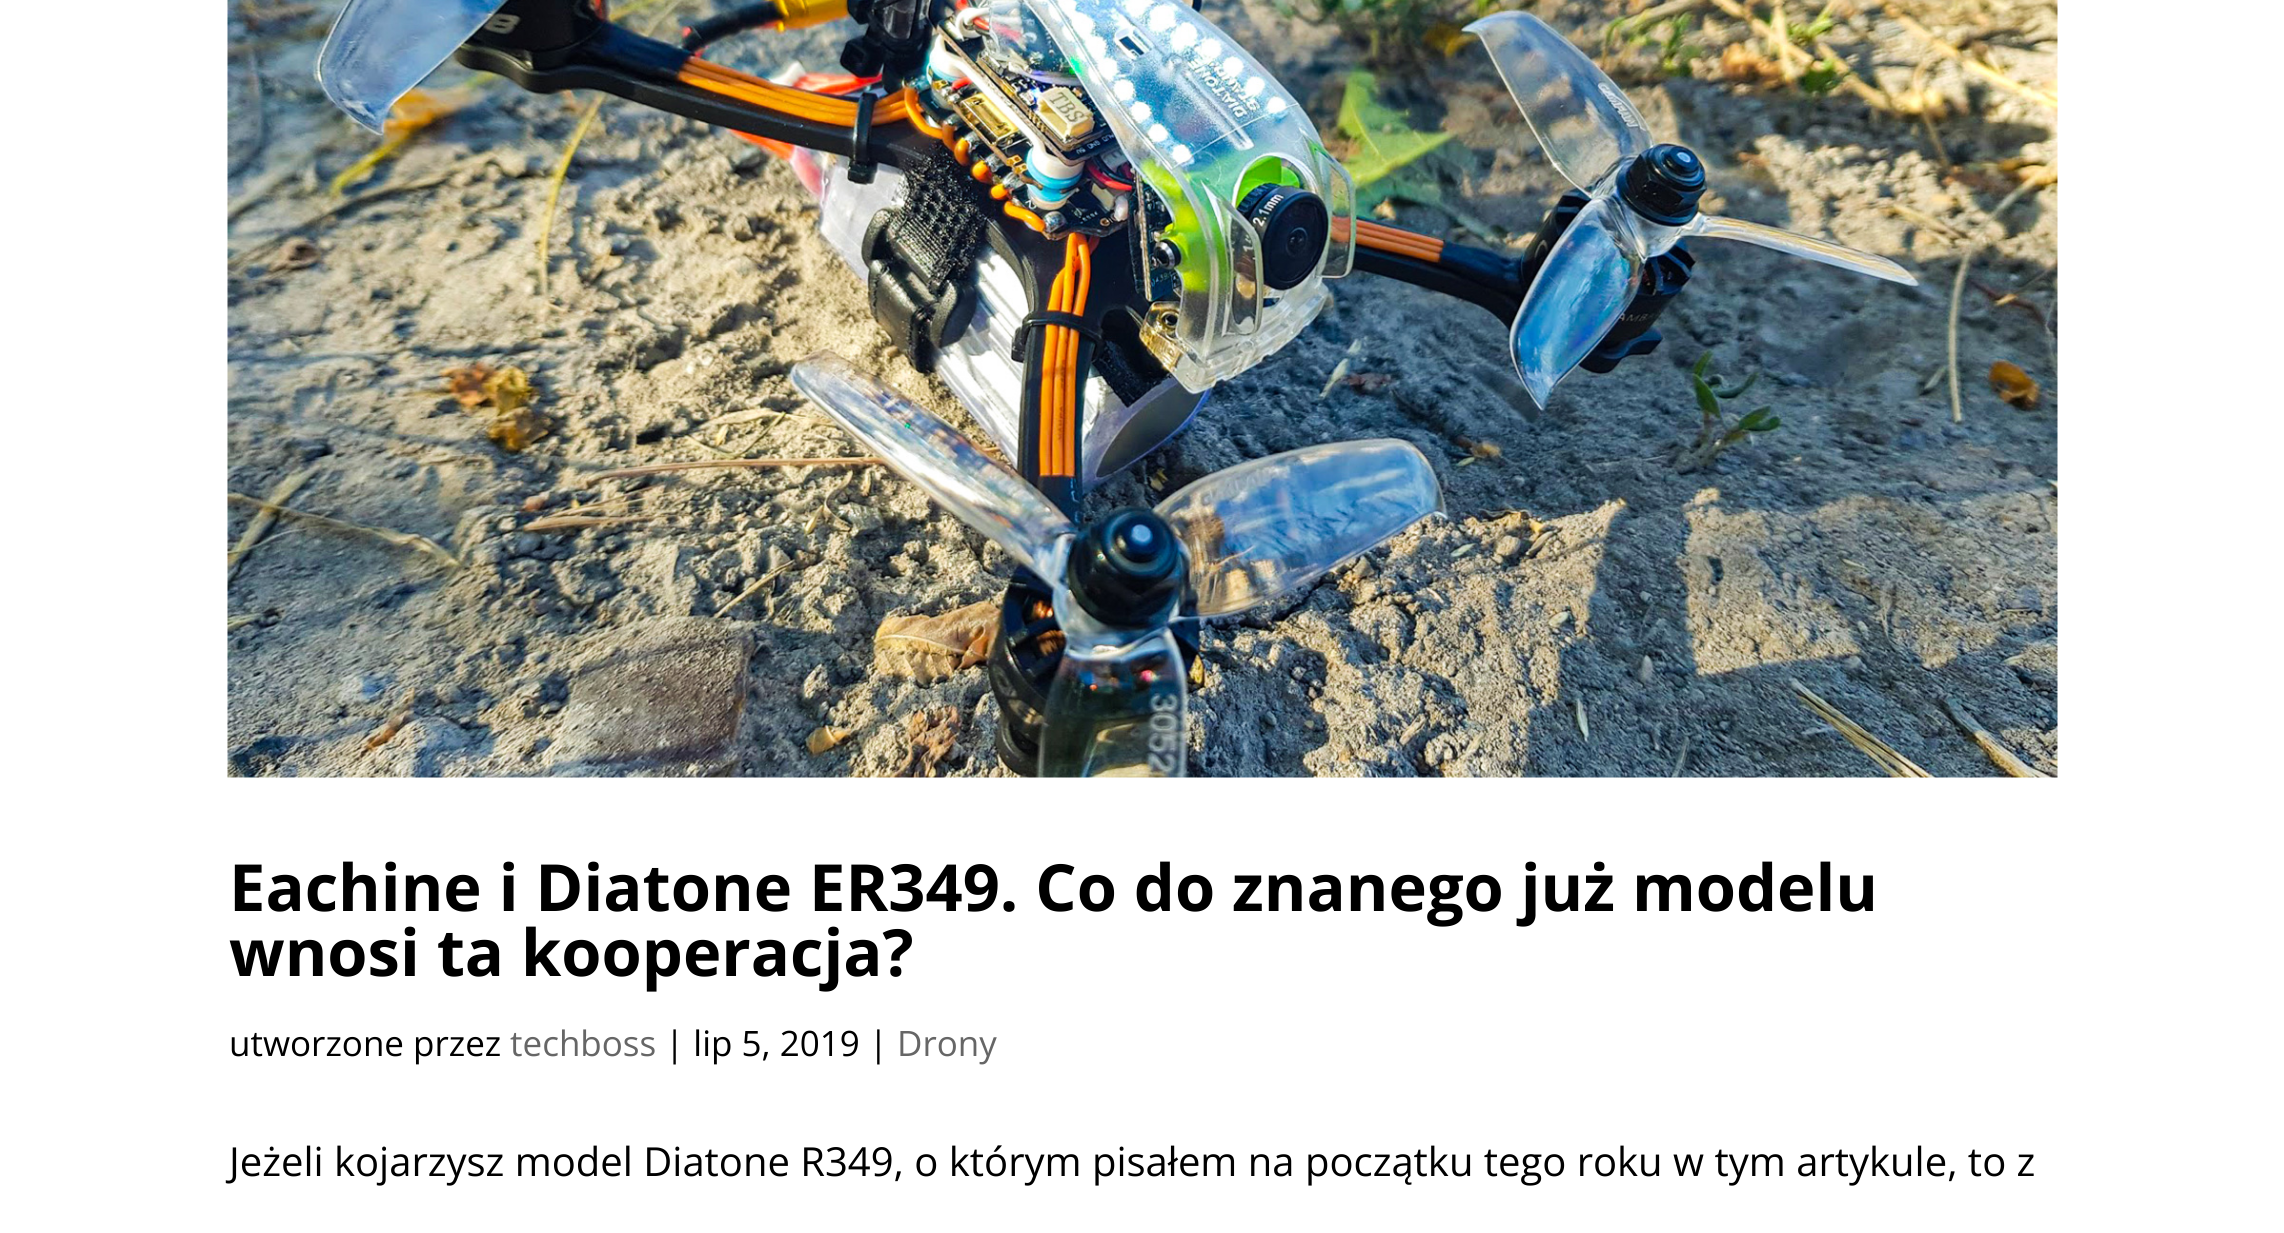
#include <cairo.h>
#include <math.h>
#include <stddef.h>


static void picture(cairo_t *cr, const char *path, double x, double y, double w, double h) {
    cairo_surface_t *image = cairo_image_surface_create_from_png(path);
    cairo_save(cr);
    cairo_set_source_surface(cr, image, x, y);
    cairo_rectangle(cr, x, y, w, h);
    cairo_fill(cr);
    cairo_restore(cr);
    cairo_surface_destroy(image);
}

int main(void) {
    cairo_surface_t *surface = cairo_image_surface_create(CAIRO_FORMAT_RGB24, 2284, 1233);
    cairo_t *cr = cairo_create(surface);
    cairo_font_options_t *options = cairo_font_options_create();
    cairo_font_options_set_hint_metrics(options, CAIRO_HINT_METRICS_OFF);
    cairo_font_options_set_hint_style(options, CAIRO_HINT_STYLE_NONE);
    cairo_set_font_options(cr, options);
    cairo_set_miter_limit(cr, 4);
    cairo_set_source_rgb(cr, 1, 1, 1);
    cairo_paint(cr);
    picture(cr, "img1.png", 227, 0, 1831, 778);
    cairo_select_font_face(cr, "Open Sans", CAIRO_FONT_SLANT_NORMAL, CAIRO_FONT_WEIGHT_BOLD);
    cairo_set_font_size(cr, 65);
    cairo_set_source_rgb(cr, 0, 0, 0);
    cairo_move_to(cr, 229, 911);
    cairo_show_text(cr, "Eachine i Diatone ER349. Co do znanego już modelu");
    cairo_move_to(cr, 229, 976);
    cairo_show_text(cr, "wnosi ta kooperacja?");
    cairo_select_font_face(cr, "Open Sans", CAIRO_FONT_SLANT_NORMAL, CAIRO_FONT_WEIGHT_NORMAL);
    cairo_set_font_size(cr, 35);
    cairo_move_to(cr, 229, 1056);
    cairo_show_text(cr, "utworzone przez");
    cairo_set_source_rgb(cr, 0.4, 0.4, 0.4);
    cairo_move_to(cr, 510, 1056);
    cairo_show_text(cr, "techboss");
    cairo_set_source_rgb(cr, 0, 0, 0);
    cairo_move_to(cr, 665, 1056);
    cairo_show_text(cr, "| lip 5, 2019 |");
    cairo_set_source_rgb(cr, 0.4, 0.4, 0.4);
    cairo_move_to(cr, 897, 1056);
    cairo_show_text(cr, "Drony");
    cairo_set_font_size(cr, 40);
    cairo_set_source_rgb(cr, 0, 0, 0);
    cairo_move_to(cr, 229, 1176);
    cairo_show_text(cr, "Jeżeli kojarzysz model Diatone R349, o którym pisałem na początku tego roku w tym artykule, to z");
    cairo_surface_write_to_png(surface, "page.png");
    cairo_font_options_destroy(options);
    cairo_destroy(cr);
    cairo_surface_destroy(surface);
    return 0;
}
